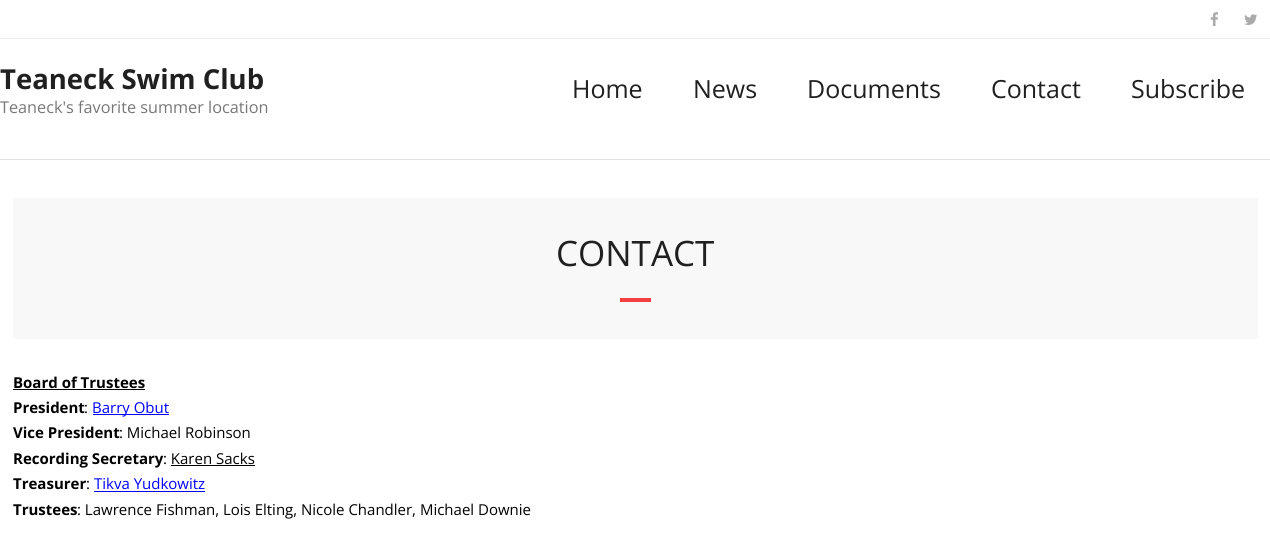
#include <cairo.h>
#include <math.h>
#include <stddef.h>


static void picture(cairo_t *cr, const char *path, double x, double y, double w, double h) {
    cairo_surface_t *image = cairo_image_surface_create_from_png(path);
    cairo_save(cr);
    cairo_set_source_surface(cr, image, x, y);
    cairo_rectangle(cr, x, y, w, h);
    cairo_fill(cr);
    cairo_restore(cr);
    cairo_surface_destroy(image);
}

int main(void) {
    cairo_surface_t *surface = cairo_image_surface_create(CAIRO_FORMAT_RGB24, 1270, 534);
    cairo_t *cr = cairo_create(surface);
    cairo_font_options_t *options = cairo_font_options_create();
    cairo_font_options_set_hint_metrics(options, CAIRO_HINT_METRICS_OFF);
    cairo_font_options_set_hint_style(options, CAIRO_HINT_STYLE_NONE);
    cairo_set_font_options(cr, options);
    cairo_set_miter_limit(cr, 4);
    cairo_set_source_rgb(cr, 1, 1, 1);
    cairo_paint(cr);
    cairo_set_source_rgb(cr, 0.933, 0.933, 0.933);
    cairo_rectangle(cr, 0, 38, 1270, 1);
    cairo_fill(cr);
    picture(cr, "img1.png", 1210, 12, 8, 15);
    picture(cr, "img2.png", 1244, 14, 13, 11);
    cairo_set_source_rgb(cr, 0.878, 0.878, 0.878);
    cairo_rectangle(cr, 0, 159, 1270, 1);
    cairo_fill(cr);
    cairo_select_font_face(cr, "Open Sans", CAIRO_FONT_SLANT_NORMAL, CAIRO_FONT_WEIGHT_BOLD);
    cairo_set_font_size(cr, 27.5);
    cairo_set_source_rgb(cr, 0.125, 0.125, 0.125);
    cairo_move_to(cr, 0, 89);
    cairo_show_text(cr, "Teaneck Swim Club");
    cairo_select_font_face(cr, "Open Sans", CAIRO_FONT_SLANT_NORMAL, CAIRO_FONT_WEIGHT_NORMAL);
    cairo_set_font_size(cr, 16.25);
    cairo_set_source_rgb(cr, 0.467, 0.467, 0.467);
    cairo_move_to(cr, 0, 113);
    cairo_show_text(cr, "Teaneck's favorite summer location");
    cairo_set_font_size(cr, 25);
    cairo_set_source_rgb(cr, 0.125, 0.125, 0.125);
    cairo_move_to(cr, 572, 98);
    cairo_show_text(cr, "Home");
    cairo_move_to(cr, 693, 98);
    cairo_show_text(cr, "News");
    cairo_move_to(cr, 807, 98);
    cairo_show_text(cr, "Documents");
    cairo_move_to(cr, 991, 98);
    cairo_show_text(cr, "Contact");
    cairo_move_to(cr, 1131, 98);
    cairo_show_text(cr, "Subscribe");
    cairo_set_source_rgb(cr, 0.969, 0.969, 0.969);
    cairo_rectangle(cr, 13, 198, 1245, 141);
    cairo_fill(cr);
    cairo_set_font_size(cr, 35);
    cairo_set_source_rgb(cr, 0.125, 0.125, 0.125);
    cairo_move_to(cr, 556, 266);
    cairo_show_text(cr, "CONTACT");
    cairo_set_source_rgb(cr, 0.953, 0.247, 0.247);
    cairo_rectangle(cr, 620, 298, 31, 4);
    cairo_fill(cr);
    cairo_select_font_face(cr, "Open Sans", CAIRO_FONT_SLANT_NORMAL, CAIRO_FONT_WEIGHT_BOLD);
    cairo_set_font_size(cr, 15);
    cairo_set_source_rgb(cr, 0, 0, 0);
    cairo_move_to(cr, 13, 388);
    cairo_show_text(cr, "Board of Trustees");
    cairo_rectangle(cr, 13, 389, 132, 1);
    cairo_fill(cr);
    cairo_move_to(cr, 13, 413);
    cairo_show_text(cr, "President");
    cairo_select_font_face(cr, "Open Sans", CAIRO_FONT_SLANT_NORMAL, CAIRO_FONT_WEIGHT_NORMAL);
    cairo_move_to(cr, 84, 413);
    cairo_show_text(cr, ":");
    cairo_set_source_rgb(cr, 0, 0, 1);
    cairo_rectangle(cr, 93, 414, 76, 1);
    cairo_fill(cr);
    cairo_move_to(cr, 92, 413);
    cairo_show_text(cr, "Barry Obut");
    cairo_select_font_face(cr, "Open Sans", CAIRO_FONT_SLANT_NORMAL, CAIRO_FONT_WEIGHT_BOLD);
    cairo_set_source_rgb(cr, 0, 0, 0);
    cairo_move_to(cr, 13, 438);
    cairo_show_text(cr, "Vice President");
    cairo_select_font_face(cr, "Open Sans", CAIRO_FONT_SLANT_NORMAL, CAIRO_FONT_WEIGHT_NORMAL);
    cairo_move_to(cr, 119, 438);
    cairo_show_text(cr, ": Michael Robinson");
    cairo_select_font_face(cr, "Open Sans", CAIRO_FONT_SLANT_NORMAL, CAIRO_FONT_WEIGHT_BOLD);
    cairo_move_to(cr, 13, 464);
    cairo_show_text(cr, "Recording Secretary");
    cairo_select_font_face(cr, "Open Sans", CAIRO_FONT_SLANT_NORMAL, CAIRO_FONT_WEIGHT_NORMAL);
    cairo_move_to(cr, 163, 464);
    cairo_show_text(cr, ": Karen Sacks");
    cairo_rectangle(cr, 171, 465, 84, 1);
    cairo_fill(cr);
    cairo_select_font_face(cr, "Open Sans", CAIRO_FONT_SLANT_NORMAL, CAIRO_FONT_WEIGHT_BOLD);
    cairo_move_to(cr, 13, 489);
    cairo_show_text(cr, "Treasurer");
    cairo_select_font_face(cr, "Open Sans", CAIRO_FONT_SLANT_NORMAL, CAIRO_FONT_WEIGHT_NORMAL);
    cairo_move_to(cr, 86, 489);
    cairo_show_text(cr, ":");
    cairo_set_source_rgb(cr, 0, 0, 1);
    cairo_move_to(cr, 94, 489);
    cairo_show_text(cr, "Tikva Yudkowitz");
    cairo_rectangle(cr, 94, 491, 111, 1);
    cairo_fill(cr);
    cairo_select_font_face(cr, "Open Sans", CAIRO_FONT_SLANT_NORMAL, CAIRO_FONT_WEIGHT_BOLD);
    cairo_set_source_rgb(cr, 0, 0, 0);
    cairo_move_to(cr, 13, 515);
    cairo_show_text(cr, "Trustees");
    cairo_select_font_face(cr, "Open Sans", CAIRO_FONT_SLANT_NORMAL, CAIRO_FONT_WEIGHT_NORMAL);
    cairo_move_to(cr, 77, 515);
    cairo_show_text(cr, ": Lawrence Fishman, Lois Elting, Nicole Chandler, Michael Downie");
    cairo_surface_write_to_png(surface, "page.png");
    cairo_font_options_destroy(options);
    cairo_destroy(cr);
    cairo_surface_destroy(surface);
    return 0;
}
